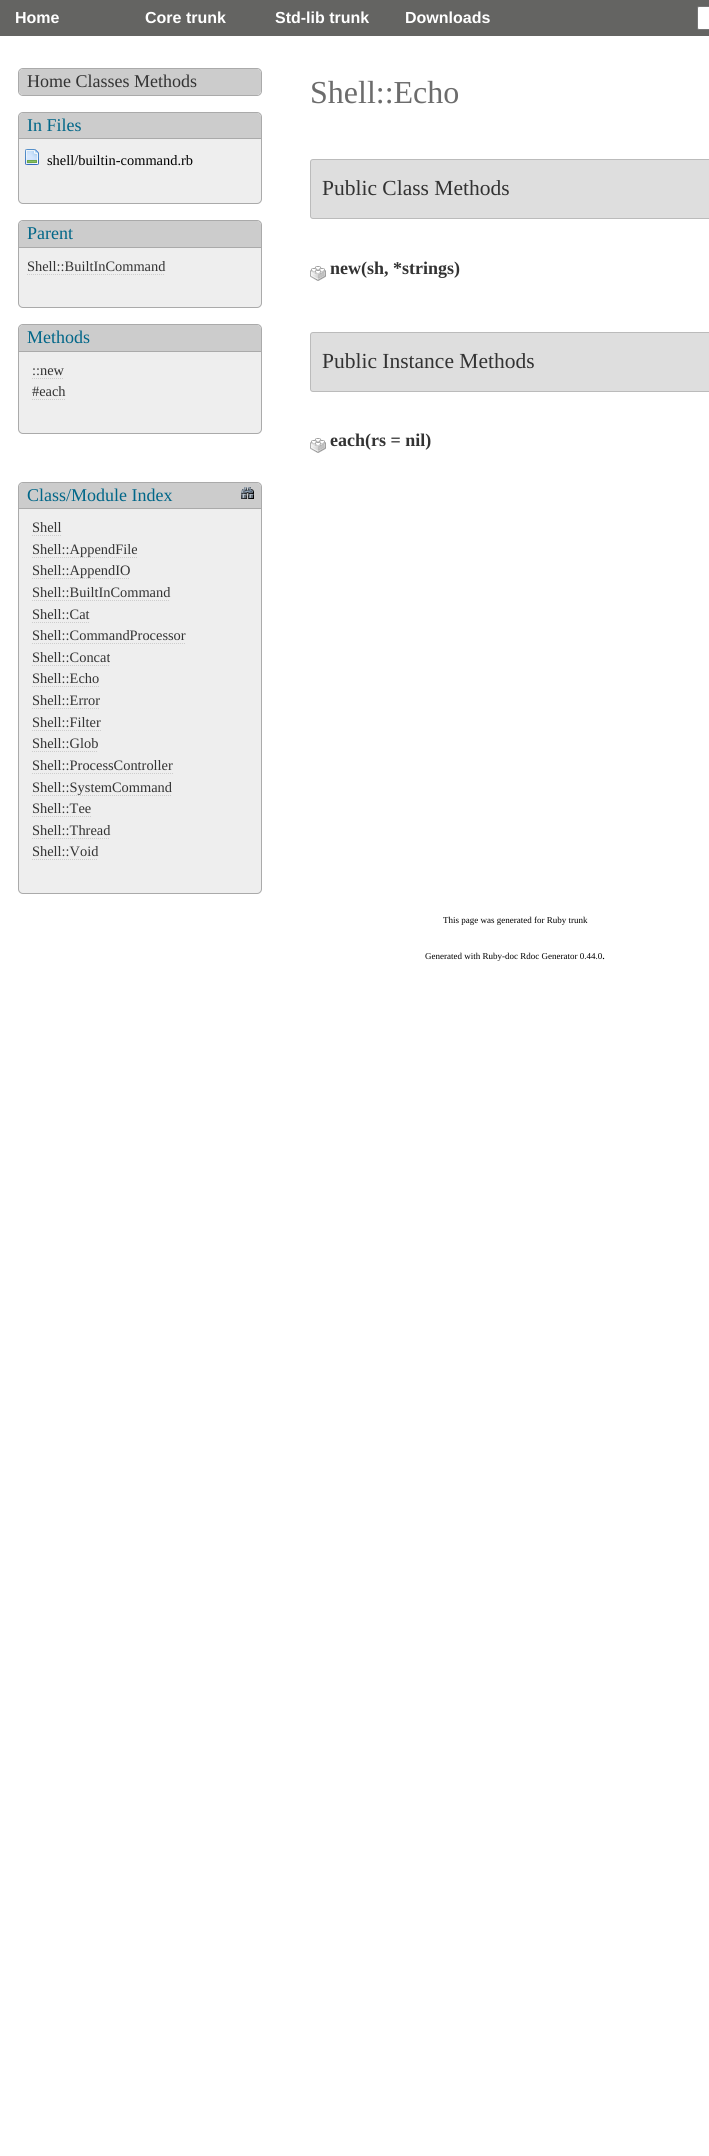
#include <cairo.h>
#include <math.h>
#include <stddef.h>


static void round_rect(cairo_t *cr, double x, double y, double w, double h, double r) {
    cairo_new_sub_path(cr);
    cairo_arc(cr, x + w - r, y + h - r, r, 0, M_PI / 2);
    cairo_arc(cr, x + r, y + h - r, r, M_PI / 2, M_PI);
    cairo_arc(cr, x + r, y + r, r, M_PI, 1.5 * M_PI);
    cairo_arc(cr, x + w - r, y + r, r, 1.5 * M_PI, 2 * M_PI);
    cairo_close_path(cr);
}

static void picture(cairo_t *cr, const char *path, double x, double y, double w, double h) {
    cairo_surface_t *image = cairo_image_surface_create_from_png(path);
    cairo_save(cr);
    cairo_set_source_surface(cr, image, x, y);
    cairo_rectangle(cr, x, y, w, h);
    cairo_fill(cr);
    cairo_restore(cr);
    cairo_surface_destroy(image);
}

int main(void) {
    cairo_surface_t *surface = cairo_image_surface_create(CAIRO_FORMAT_RGB24, 709, 2156);
    cairo_t *cr = cairo_create(surface);
    cairo_font_options_t *options = cairo_font_options_create();
    cairo_font_options_set_hint_metrics(options, CAIRO_HINT_METRICS_OFF);
    cairo_font_options_set_hint_style(options, CAIRO_HINT_STYLE_NONE);
    cairo_set_font_options(cr, options);
    cairo_set_miter_limit(cr, 4);
    cairo_set_source_rgb(cr, 1, 1, 1);
    cairo_paint(cr);
    cairo_set_source_rgb(cr, 0.392, 0.392, 0.384);
    cairo_rectangle(cr, 0, 0, 709, 36);
    cairo_fill(cr);
    cairo_select_font_face(cr, "Liberation Sans", CAIRO_FONT_SLANT_NORMAL, CAIRO_FONT_WEIGHT_BOLD);
    cairo_set_font_size(cr, 16);
    cairo_set_source_rgb(cr, 1, 1, 1);
    cairo_move_to(cr, 15, 23);
    cairo_show_text(cr, "Home");
    cairo_move_to(cr, 145, 23);
    cairo_show_text(cr, "Core trunk");
    cairo_move_to(cr, 275, 23);
    cairo_show_text(cr, "Std-lib trunk");
    cairo_move_to(cr, 405, 23);
    cairo_show_text(cr, "Downloads");
    round_rect(cr, 697.5, 6.5, 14, 23, 1.5);
    cairo_fill_preserve(cr);
    cairo_set_source_rgb(cr, 0.463, 0.463, 0.463);
    cairo_set_line_width(cr, 1);
    cairo_stroke(cr);
    round_rect(cr, 18.5, 68.5, 243, 27, 4.5);
    cairo_set_source_rgb(cr, 0.667, 0.667, 0.667);
    cairo_stroke(cr);
    cairo_set_source_rgb(cr, 0.8, 0.8, 0.8);
    round_rect(cr, 19, 69, 242, 26, 4);
    cairo_fill(cr);
    cairo_select_font_face(cr, "Liberation Serif", CAIRO_FONT_SLANT_NORMAL, CAIRO_FONT_WEIGHT_NORMAL);
    cairo_set_font_size(cr, 18);
    cairo_set_source_rgb(cr, 0.2, 0.2, 0.2);
    cairo_move_to(cr, 27, 87);
    cairo_show_text(cr, "Home Classes Methods");
    cairo_set_source_rgb(cr, 0.933, 0.933, 0.933);
    round_rect(cr, 18.5, 112.5, 243, 91, 4.5);
    cairo_fill_preserve(cr);
    cairo_set_source_rgb(cr, 0.667, 0.667, 0.667);
    cairo_stroke(cr);
    cairo_set_source_rgb(cr, 0.8, 0.8, 0.8);
    cairo_new_path(cr);
    cairo_move_to(cr, 23, 113);
    cairo_line_to(cr, 257, 113);
    cairo_curve_to(cr, 259, 113, 261, 115, 261, 117);
    cairo_line_to(cr, 261, 139);
    cairo_line_to(cr, 19, 139);
    cairo_line_to(cr, 19, 117);
    cairo_curve_to(cr, 19, 115, 21, 113, 23, 113);
    cairo_close_path(cr);
    cairo_fill(cr);
    cairo_set_source_rgb(cr, 0.667, 0.667, 0.667);
    cairo_rectangle(cr, 19, 138, 242, 1);
    cairo_fill(cr);
    cairo_set_source_rgb(cr, 0, 0.4, 0.533);
    cairo_move_to(cr, 27, 131);
    cairo_show_text(cr, "In Files");
    picture(cr, "img1.png", 25, 149, 14, 16);
    cairo_set_font_size(cr, 14.4);
    cairo_set_source_rgb(cr, 0, 0, 0);
    cairo_move_to(cr, 47, 165);
    cairo_show_text(cr, "shell/builtin-command.rb");
    cairo_set_source_rgb(cr, 0.933, 0.933, 0.933);
    round_rect(cr, 18.5, 220.5, 243, 87, 4.5);
    cairo_fill_preserve(cr);
    cairo_set_source_rgb(cr, 0.667, 0.667, 0.667);
    cairo_stroke(cr);
    cairo_set_source_rgb(cr, 0.8, 0.8, 0.8);
    cairo_new_path(cr);
    cairo_move_to(cr, 23, 221);
    cairo_line_to(cr, 257, 221);
    cairo_curve_to(cr, 259, 221, 261, 223, 261, 225);
    cairo_line_to(cr, 261, 248);
    cairo_line_to(cr, 19, 248);
    cairo_line_to(cr, 19, 225);
    cairo_curve_to(cr, 19, 223, 21, 221, 23, 221);
    cairo_close_path(cr);
    cairo_fill(cr);
    cairo_set_source_rgb(cr, 0.667, 0.667, 0.667);
    cairo_rectangle(cr, 19, 247, 242, 1);
    cairo_fill(cr);
    cairo_set_font_size(cr, 18);
    cairo_set_source_rgb(cr, 0, 0.4, 0.533);
    cairo_move_to(cr, 27, 239);
    cairo_show_text(cr, "Parent");
    cairo_set_font_size(cr, 14.4);
    cairo_set_source_rgb(cr, 0.2, 0.2, 0.2);
    cairo_move_to(cr, 27, 271);
    cairo_show_text(cr, "Shell::BuiltInCommand");
    cairo_new_path(cr);
    cairo_move_to(cr, 27, 274.5);
    cairo_line_to(cr, 165, 274.5);
    cairo_set_source_rgb(cr, 0.804, 0.804, 0.804);
    cairo_set_dash(cr, (double[]){1, 1}, 2, 0);
    cairo_stroke(cr);
    cairo_set_source_rgb(cr, 0.933, 0.933, 0.933);
    round_rect(cr, 18.5, 324.5, 243, 109, 4.5);
    cairo_fill_preserve(cr);
    cairo_set_source_rgb(cr, 0.667, 0.667, 0.667);
    cairo_set_dash(cr, NULL, 0, 0);
    cairo_stroke(cr);
    cairo_set_source_rgb(cr, 0.8, 0.8, 0.8);
    cairo_new_path(cr);
    cairo_move_to(cr, 23, 325);
    cairo_line_to(cr, 257, 325);
    cairo_curve_to(cr, 259, 325, 261, 327, 261, 329);
    cairo_line_to(cr, 261, 352);
    cairo_line_to(cr, 19, 352);
    cairo_line_to(cr, 19, 329);
    cairo_curve_to(cr, 19, 327, 21, 325, 23, 325);
    cairo_close_path(cr);
    cairo_fill(cr);
    cairo_set_source_rgb(cr, 0.667, 0.667, 0.667);
    cairo_rectangle(cr, 19, 351, 242, 1);
    cairo_fill(cr);
    cairo_set_font_size(cr, 18);
    cairo_set_source_rgb(cr, 0, 0.4, 0.533);
    cairo_move_to(cr, 27, 343);
    cairo_show_text(cr, "Methods");
    cairo_set_font_size(cr, 14.4);
    cairo_set_source_rgb(cr, 0.2, 0.2, 0.2);
    cairo_move_to(cr, 32, 375);
    cairo_show_text(cr, "::new");
    cairo_new_path(cr);
    cairo_move_to(cr, 32, 378.5);
    cairo_line_to(cr, 64, 378.5);
    cairo_set_source_rgb(cr, 0.804, 0.804, 0.804);
    cairo_set_dash(cr, (double[]){1, 1}, 2, 0);
    cairo_stroke(cr);
    cairo_set_source_rgb(cr, 0.2, 0.2, 0.2);
    cairo_move_to(cr, 32, 396);
    cairo_show_text(cr, "#each");
    cairo_new_path(cr);
    cairo_move_to(cr, 32, 399.5);
    cairo_line_to(cr, 66, 399.5);
    cairo_set_source_rgb(cr, 0.804, 0.804, 0.804);
    cairo_stroke(cr);
    cairo_set_source_rgb(cr, 0.933, 0.933, 0.933);
    round_rect(cr, 18.5, 482.5, 243, 411, 4.5);
    cairo_fill_preserve(cr);
    cairo_set_source_rgb(cr, 0.667, 0.667, 0.667);
    cairo_set_dash(cr, NULL, 0, 0);
    cairo_stroke(cr);
    cairo_set_source_rgb(cr, 0.8, 0.8, 0.8);
    cairo_new_path(cr);
    cairo_move_to(cr, 23, 483);
    cairo_line_to(cr, 257, 483);
    cairo_curve_to(cr, 259, 483, 261, 485, 261, 487);
    cairo_line_to(cr, 261, 509);
    cairo_line_to(cr, 19, 509);
    cairo_line_to(cr, 19, 487);
    cairo_curve_to(cr, 19, 485, 21, 483, 23, 483);
    cairo_close_path(cr);
    cairo_fill(cr);
    cairo_set_source_rgb(cr, 0.667, 0.667, 0.667);
    cairo_rectangle(cr, 19, 508, 242, 1);
    cairo_fill(cr);
    cairo_set_font_size(cr, 18);
    cairo_set_source_rgb(cr, 0, 0.4, 0.533);
    cairo_move_to(cr, 27, 501);
    cairo_show_text(cr, "Class/Module Index");
    picture(cr, "img2.png", 241, 487, 13, 12);
    cairo_set_font_size(cr, 14.4);
    cairo_set_source_rgb(cr, 0.2, 0.2, 0.2);
    cairo_move_to(cr, 32, 532);
    cairo_show_text(cr, "Shell");
    cairo_new_path(cr);
    cairo_move_to(cr, 32, 535.5);
    cairo_line_to(cr, 62, 535.5);
    cairo_set_source_rgb(cr, 0.804, 0.804, 0.804);
    cairo_set_dash(cr, (double[]){1, 1}, 2, 0);
    cairo_stroke(cr);
    cairo_new_path(cr);
    cairo_move_to(cr, 32, 557.5);
    cairo_line_to(cr, 138, 557.5);
    cairo_stroke(cr);
    cairo_set_source_rgb(cr, 0.2, 0.2, 0.2);
    cairo_move_to(cr, 32, 554);
    cairo_show_text(cr, "Shell::AppendFile");
    cairo_new_path(cr);
    cairo_move_to(cr, 32, 578.5);
    cairo_line_to(cr, 130, 578.5);
    cairo_set_source_rgb(cr, 0.804, 0.804, 0.804);
    cairo_stroke(cr);
    cairo_set_source_rgb(cr, 0.2, 0.2, 0.2);
    cairo_move_to(cr, 32, 575);
    cairo_show_text(cr, "Shell::AppendIO");
    cairo_move_to(cr, 32, 597);
    cairo_show_text(cr, "Shell::BuiltInCommand");
    cairo_new_path(cr);
    cairo_move_to(cr, 32, 600.5);
    cairo_line_to(cr, 170, 600.5);
    cairo_set_source_rgb(cr, 0.804, 0.804, 0.804);
    cairo_stroke(cr);
    cairo_set_source_rgb(cr, 0.2, 0.2, 0.2);
    cairo_move_to(cr, 32, 619);
    cairo_show_text(cr, "Shell::Cat");
    cairo_new_path(cr);
    cairo_move_to(cr, 32, 622.5);
    cairo_line_to(cr, 90, 622.5);
    cairo_set_source_rgb(cr, 0.804, 0.804, 0.804);
    cairo_stroke(cr);
    cairo_set_source_rgb(cr, 0.2, 0.2, 0.2);
    cairo_move_to(cr, 32, 640);
    cairo_show_text(cr, "Shell::CommandProcessor");
    cairo_new_path(cr);
    cairo_move_to(cr, 32, 643.5);
    cairo_line_to(cr, 186, 643.5);
    cairo_set_source_rgb(cr, 0.804, 0.804, 0.804);
    cairo_stroke(cr);
    cairo_set_source_rgb(cr, 0.2, 0.2, 0.2);
    cairo_move_to(cr, 32, 662);
    cairo_show_text(cr, "Shell::Concat");
    cairo_new_path(cr);
    cairo_move_to(cr, 32, 665.5);
    cairo_line_to(cr, 110, 665.5);
    cairo_set_source_rgb(cr, 0.804, 0.804, 0.804);
    cairo_stroke(cr);
    cairo_set_source_rgb(cr, 0.2, 0.2, 0.2);
    cairo_move_to(cr, 32, 683);
    cairo_show_text(cr, "Shell::Echo");
    cairo_new_path(cr);
    cairo_move_to(cr, 32, 686.5);
    cairo_line_to(cr, 99, 686.5);
    cairo_set_source_rgb(cr, 0.804, 0.804, 0.804);
    cairo_stroke(cr);
    cairo_set_source_rgb(cr, 0.2, 0.2, 0.2);
    cairo_move_to(cr, 32, 705);
    cairo_show_text(cr, "Shell::Error");
    cairo_new_path(cr);
    cairo_move_to(cr, 32, 708.5);
    cairo_line_to(cr, 100, 708.5);
    cairo_set_source_rgb(cr, 0.804, 0.804, 0.804);
    cairo_stroke(cr);
    cairo_set_source_rgb(cr, 0.2, 0.2, 0.2);
    cairo_move_to(cr, 32, 727);
    cairo_show_text(cr, "Shell::Filter");
    cairo_new_path(cr);
    cairo_move_to(cr, 32, 730.5);
    cairo_line_to(cr, 101, 730.5);
    cairo_set_source_rgb(cr, 0.804, 0.804, 0.804);
    cairo_stroke(cr);
    cairo_set_source_rgb(cr, 0.2, 0.2, 0.2);
    cairo_move_to(cr, 32, 748);
    cairo_show_text(cr, "Shell::Glob");
    cairo_new_path(cr);
    cairo_move_to(cr, 32, 751.5);
    cairo_line_to(cr, 98, 751.5);
    cairo_set_source_rgb(cr, 0.804, 0.804, 0.804);
    cairo_stroke(cr);
    cairo_set_source_rgb(cr, 0.2, 0.2, 0.2);
    cairo_move_to(cr, 32, 770);
    cairo_show_text(cr, "Shell::ProcessController");
    cairo_new_path(cr);
    cairo_move_to(cr, 32, 773.5);
    cairo_line_to(cr, 173, 773.5);
    cairo_set_source_rgb(cr, 0.804, 0.804, 0.804);
    cairo_stroke(cr);
    cairo_new_path(cr);
    cairo_move_to(cr, 32, 795.5);
    cairo_line_to(cr, 172, 795.5);
    cairo_stroke(cr);
    cairo_set_source_rgb(cr, 0.2, 0.2, 0.2);
    cairo_move_to(cr, 32, 792);
    cairo_show_text(cr, "Shell::SystemCommand");
    cairo_move_to(cr, 32, 813);
    cairo_show_text(cr, "Shell::Tee");
    cairo_new_path(cr);
    cairo_move_to(cr, 32, 816.5);
    cairo_line_to(cr, 91, 816.5);
    cairo_set_source_rgb(cr, 0.804, 0.804, 0.804);
    cairo_stroke(cr);
    cairo_set_source_rgb(cr, 0.2, 0.2, 0.2);
    cairo_move_to(cr, 32, 835);
    cairo_show_text(cr, "Shell::Thread");
    cairo_new_path(cr);
    cairo_move_to(cr, 32, 838.5);
    cairo_line_to(cr, 110, 838.5);
    cairo_set_source_rgb(cr, 0.804, 0.804, 0.804);
    cairo_stroke(cr);
    cairo_set_source_rgb(cr, 0.2, 0.2, 0.2);
    cairo_move_to(cr, 32, 856);
    cairo_show_text(cr, "Shell::Void");
    cairo_new_path(cr);
    cairo_move_to(cr, 32, 859.5);
    cairo_line_to(cr, 98, 859.5);
    cairo_set_source_rgb(cr, 0.804, 0.804, 0.804);
    cairo_stroke(cr);
    cairo_set_font_size(cr, 32);
    cairo_set_source_rgb(cr, 0.424, 0.424, 0.424);
    cairo_move_to(cr, 310, 103);
    cairo_show_text(cr, "Shell::Echo");
    cairo_set_source_rgb(cr, 0.871, 0.871, 0.871);
    round_rect(cr, 310.5, 159.5, 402, 59, 2.5);
    cairo_fill_preserve(cr);
    cairo_set_source_rgb(cr, 0.733, 0.733, 0.733);
    cairo_set_dash(cr, NULL, 0, 0);
    cairo_stroke(cr);
    cairo_set_font_size(cr, 21.5);
    cairo_set_source_rgb(cr, 0.2, 0.2, 0.2);
    cairo_move_to(cr, 322, 195);
    cairo_show_text(cr, "Public Class Methods");
    picture(cr, "img3.png", 310, 266, 16, 15);
    cairo_select_font_face(cr, "Liberation Serif", CAIRO_FONT_SLANT_NORMAL, CAIRO_FONT_WEIGHT_BOLD);
    cairo_set_font_size(cr, 18);
    cairo_move_to(cr, 330, 274);
    cairo_show_text(cr, "new(sh, *strings)");
    cairo_set_source_rgb(cr, 0.871, 0.871, 0.871);
    round_rect(cr, 310.5, 332.5, 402, 59, 2.5);
    cairo_fill_preserve(cr);
    cairo_set_source_rgb(cr, 0.733, 0.733, 0.733);
    cairo_stroke(cr);
    cairo_select_font_face(cr, "Liberation Serif", CAIRO_FONT_SLANT_NORMAL, CAIRO_FONT_WEIGHT_NORMAL);
    cairo_set_font_size(cr, 21.5);
    cairo_set_source_rgb(cr, 0.2, 0.2, 0.2);
    cairo_move_to(cr, 322, 368);
    cairo_show_text(cr, "Public Instance Methods");
    picture(cr, "img3.png", 310, 438, 16, 15);
    cairo_select_font_face(cr, "Liberation Serif", CAIRO_FONT_SLANT_NORMAL, CAIRO_FONT_WEIGHT_BOLD);
    cairo_set_font_size(cr, 18);
    cairo_move_to(cr, 330, 446);
    cairo_show_text(cr, "each(rs = nil)");
    cairo_select_font_face(cr, "Liberation Serif", CAIRO_FONT_SLANT_NORMAL, CAIRO_FONT_WEIGHT_NORMAL);
    cairo_set_font_size(cr, 9);
    cairo_set_source_rgb(cr, 0, 0, 0);
    cairo_move_to(cr, 443, 923);
    cairo_show_text(cr, "This page was generated for Ruby trunk");
    cairo_move_to(cr, 425, 959);
    cairo_show_text(cr, "Generated with Ruby-doc Rdoc Generator 0.44.0");
    cairo_set_font_size(cr, 12);
    cairo_move_to(cr, 602, 959);
    cairo_show_text(cr, ".");
    cairo_surface_write_to_png(surface, "page.png");
    cairo_font_options_destroy(options);
    cairo_destroy(cr);
    cairo_surface_destroy(surface);
    return 0;
}
